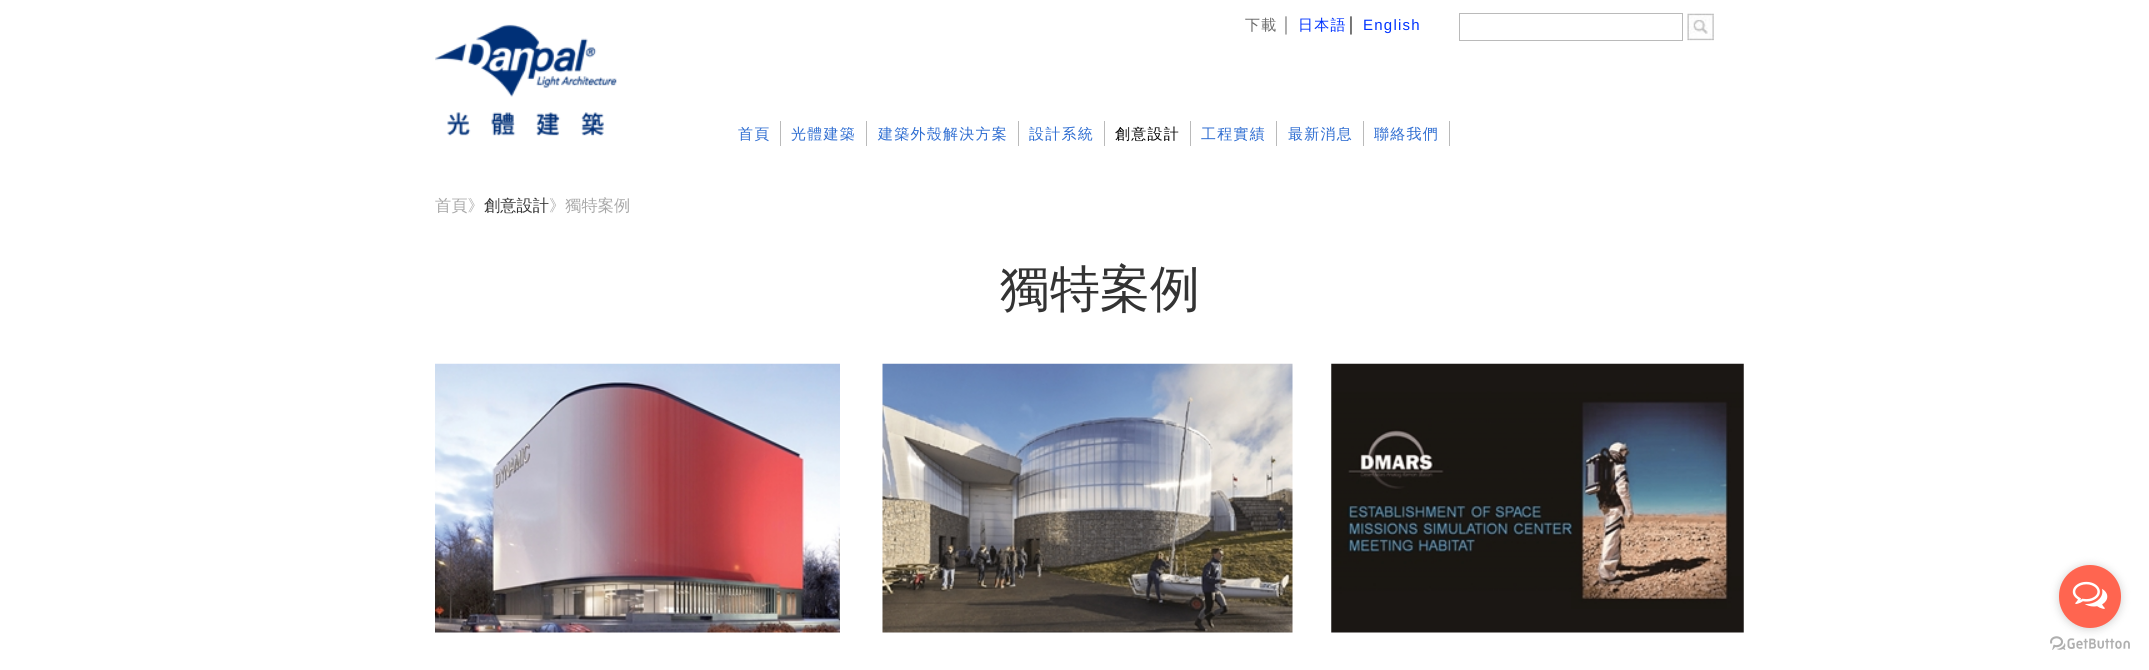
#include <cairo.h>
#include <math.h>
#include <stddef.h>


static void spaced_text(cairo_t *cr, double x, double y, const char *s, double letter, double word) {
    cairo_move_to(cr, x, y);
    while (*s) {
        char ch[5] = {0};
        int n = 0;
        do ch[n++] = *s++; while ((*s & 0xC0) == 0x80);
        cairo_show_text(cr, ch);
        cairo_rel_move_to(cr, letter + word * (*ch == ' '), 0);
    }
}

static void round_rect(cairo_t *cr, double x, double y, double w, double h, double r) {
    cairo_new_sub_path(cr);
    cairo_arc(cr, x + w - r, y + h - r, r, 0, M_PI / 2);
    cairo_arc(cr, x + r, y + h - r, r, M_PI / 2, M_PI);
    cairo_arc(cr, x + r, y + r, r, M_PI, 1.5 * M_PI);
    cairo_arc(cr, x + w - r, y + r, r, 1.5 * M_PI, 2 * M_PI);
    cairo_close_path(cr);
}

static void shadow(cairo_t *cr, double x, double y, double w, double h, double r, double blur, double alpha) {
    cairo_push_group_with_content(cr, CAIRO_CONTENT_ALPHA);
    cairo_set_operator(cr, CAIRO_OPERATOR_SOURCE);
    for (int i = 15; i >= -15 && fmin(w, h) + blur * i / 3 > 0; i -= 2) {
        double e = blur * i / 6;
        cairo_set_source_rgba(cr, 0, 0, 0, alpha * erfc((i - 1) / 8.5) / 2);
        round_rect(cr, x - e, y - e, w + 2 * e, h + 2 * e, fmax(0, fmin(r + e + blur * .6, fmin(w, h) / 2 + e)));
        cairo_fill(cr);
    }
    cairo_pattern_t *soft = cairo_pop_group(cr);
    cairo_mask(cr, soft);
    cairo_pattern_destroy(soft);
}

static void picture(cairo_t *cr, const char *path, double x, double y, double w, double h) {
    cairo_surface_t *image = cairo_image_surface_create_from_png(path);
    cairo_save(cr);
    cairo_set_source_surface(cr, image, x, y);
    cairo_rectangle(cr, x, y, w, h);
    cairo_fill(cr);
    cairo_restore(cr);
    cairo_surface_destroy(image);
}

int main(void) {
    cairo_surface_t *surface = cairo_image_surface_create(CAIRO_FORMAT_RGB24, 2149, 670);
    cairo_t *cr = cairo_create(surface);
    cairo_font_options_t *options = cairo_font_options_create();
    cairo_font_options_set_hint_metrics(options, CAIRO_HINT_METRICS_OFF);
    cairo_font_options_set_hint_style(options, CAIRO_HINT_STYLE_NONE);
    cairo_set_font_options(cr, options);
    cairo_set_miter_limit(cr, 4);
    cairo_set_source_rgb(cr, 1, 1, 1);
    cairo_paint(cr);
    cairo_select_font_face(cr, "WenQuanYi Zen Hei Medium", CAIRO_FONT_SLANT_NORMAL, CAIRO_FONT_WEIGHT_NORMAL);
    cairo_set_font_size(cr, 15);
    cairo_set_source_rgb(cr, 0.412, 0.412, 0.412);
    spaced_text(cr, 1245, 30, "下載", 1.25, 0);
    cairo_select_font_face(cr, "Liberation Sans", CAIRO_FONT_SLANT_NORMAL, CAIRO_FONT_WEIGHT_NORMAL);
    spaced_text(cr, 1282, 30, "│", 1.25, 0);
    cairo_select_font_face(cr, "WenQuanYi Zen Hei Medium", CAIRO_FONT_SLANT_NORMAL, CAIRO_FONT_WEIGHT_NORMAL);
    cairo_set_source_rgb(cr, 0, 0.2, 1);
    spaced_text(cr, 1298, 30, "日本語", 1.25, 0);
    cairo_select_font_face(cr, "Liberation Sans", CAIRO_FONT_SLANT_NORMAL, CAIRO_FONT_WEIGHT_NORMAL);
    cairo_set_source_rgb(cr, 0, 0, 0);
    spaced_text(cr, 1347, 30, "│", 1.25, 0);
    cairo_set_source_rgb(cr, 0, 0.2, 1);
    spaced_text(cr, 1363, 30, "English", 1.25, 0);
    cairo_rectangle(cr, 1459.5, 13.5, 223, 27);
    cairo_set_source_rgb(cr, 0.729, 0.729, 0.729);
    cairo_set_line_width(cr, 1);
    cairo_stroke(cr);
    picture(cr, "img1.png", 1686, 13, 29, 28);
    picture(cr, "img2.png", 435, 24, 182, 112);
    cairo_rectangle(cr, 780, 121, 1, 25);
    cairo_fill(cr);
    cairo_select_font_face(cr, "WenQuanYi Zen Hei Medium", CAIRO_FONT_SLANT_NORMAL, CAIRO_FONT_WEIGHT_NORMAL);
    cairo_set_source_rgb(cr, 0.18, 0.427, 0.82);
    spaced_text(cr, 738, 139, "首頁", 1.25, 0);
    cairo_set_source_rgb(cr, 0.729, 0.729, 0.729);
    cairo_rectangle(cr, 866, 121, 1, 25);
    cairo_fill(cr);
    cairo_set_source_rgb(cr, 0.18, 0.427, 0.82);
    spaced_text(cr, 791, 139, "光體建築", 1.25, 0);
    cairo_set_source_rgb(cr, 0.729, 0.729, 0.729);
    cairo_rectangle(cr, 1018, 121, 1, 25);
    cairo_fill(cr);
    cairo_set_source_rgb(cr, 0.18, 0.427, 0.82);
    spaced_text(cr, 878, 139, "建築外殼解決方案", 1.25, 0);
    cairo_set_source_rgb(cr, 0.729, 0.729, 0.729);
    cairo_rectangle(cr, 1104, 121, 1, 25);
    cairo_fill(cr);
    cairo_set_source_rgb(cr, 0.18, 0.427, 0.82);
    spaced_text(cr, 1029, 139, "設計系統", 1.25, 0);
    cairo_set_source_rgb(cr, 0.729, 0.729, 0.729);
    cairo_rectangle(cr, 1190, 121, 1, 25);
    cairo_fill(cr);
    cairo_set_source_rgb(cr, 0, 0, 0);
    spaced_text(cr, 1115, 139, "創意設計", 1.25, 0);
    cairo_set_source_rgb(cr, 0.729, 0.729, 0.729);
    cairo_rectangle(cr, 1276, 121, 1, 25);
    cairo_fill(cr);
    cairo_set_source_rgb(cr, 0.18, 0.427, 0.82);
    spaced_text(cr, 1201, 139, "工程實績", 1.25, 0);
    cairo_set_source_rgb(cr, 0.729, 0.729, 0.729);
    cairo_rectangle(cr, 1363, 121, 1, 25);
    cairo_fill(cr);
    cairo_set_source_rgb(cr, 0.18, 0.427, 0.82);
    spaced_text(cr, 1288, 139, "最新消息", 1.25, 0);
    cairo_set_source_rgb(cr, 0.729, 0.729, 0.729);
    cairo_rectangle(cr, 1449, 121, 1, 25);
    cairo_fill(cr);
    cairo_set_source_rgb(cr, 0.18, 0.427, 0.82);
    spaced_text(cr, 1374, 139, "聯絡我們", 1.25, 0);
    cairo_set_font_size(cr, 16.25);
    cairo_set_source_rgb(cr, 0.659, 0.659, 0.659);
    cairo_move_to(cr, 435, 211);
    cairo_show_text(cr, "首頁》");
    cairo_set_source_rgb(cr, 0.2, 0.2, 0.2);
    cairo_move_to(cr, 484, 211);
    cairo_show_text(cr, "創意設計");
    cairo_set_source_rgb(cr, 0.659, 0.659, 0.659);
    cairo_move_to(cr, 549, 211);
    cairo_show_text(cr, "》獨特案例");
    cairo_set_font_size(cr, 50);
    cairo_set_source_rgb(cr, 0.2, 0.2, 0.2);
    cairo_move_to(cr, 1000, 306);
    cairo_show_text(cr, "獨特案例");
    picture(cr, "img3.png", 435, 363, 405, 270);
    picture(cr, "img4.png", 882, 363, 411, 270);
    picture(cr, "img5.png", 1331, 363, 413, 270);
    picture(cr, "img7.png", 2050, 636, 80, 14);
    cairo_set_source_rgb(cr, 0.533, 0.533, 0.533);
    shadow(cr, 2059, 566, 62, 63, 31, 4.5, 0.4);
    cairo_set_source_rgb(cr, 1, 0.396, 0.314);
    round_rect(cr, 2059, 565, 62, 63, 31);
    cairo_fill(cr);
    picture(cr, "img6.png", 2072, 581, 36, 28);
    cairo_surface_write_to_png(surface, "page.png");
    cairo_font_options_destroy(options);
    cairo_destroy(cr);
    cairo_surface_destroy(surface);
    return 0;
}
